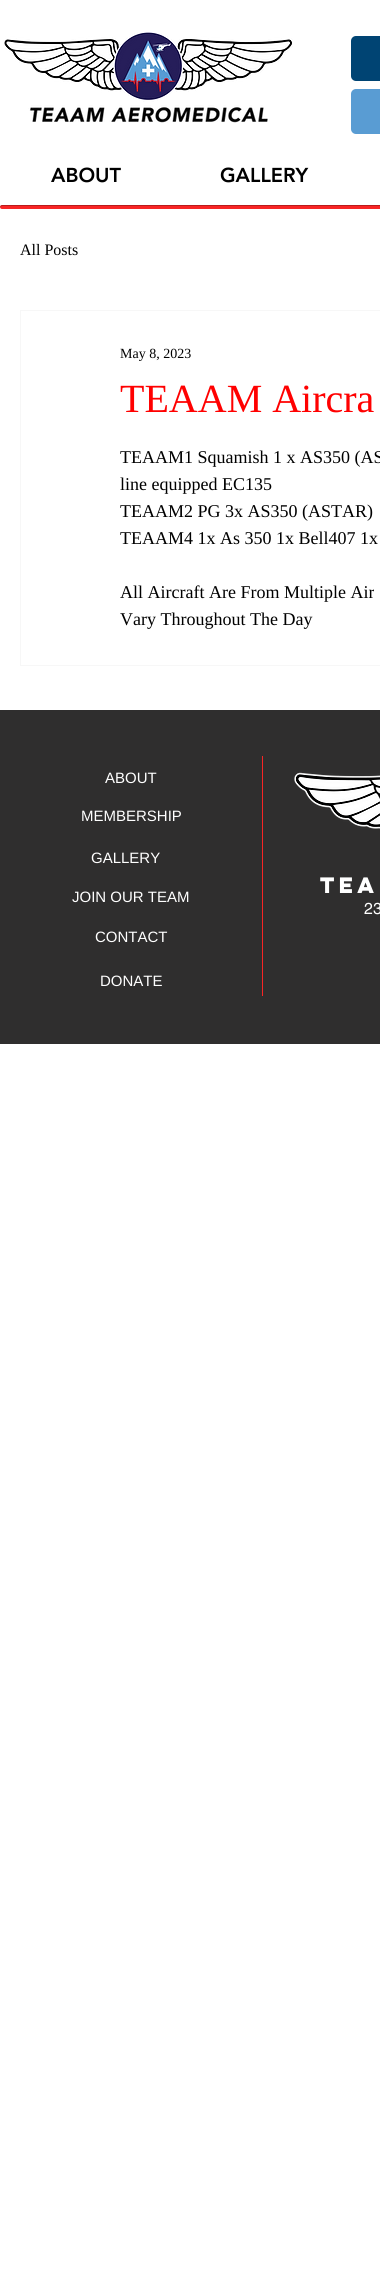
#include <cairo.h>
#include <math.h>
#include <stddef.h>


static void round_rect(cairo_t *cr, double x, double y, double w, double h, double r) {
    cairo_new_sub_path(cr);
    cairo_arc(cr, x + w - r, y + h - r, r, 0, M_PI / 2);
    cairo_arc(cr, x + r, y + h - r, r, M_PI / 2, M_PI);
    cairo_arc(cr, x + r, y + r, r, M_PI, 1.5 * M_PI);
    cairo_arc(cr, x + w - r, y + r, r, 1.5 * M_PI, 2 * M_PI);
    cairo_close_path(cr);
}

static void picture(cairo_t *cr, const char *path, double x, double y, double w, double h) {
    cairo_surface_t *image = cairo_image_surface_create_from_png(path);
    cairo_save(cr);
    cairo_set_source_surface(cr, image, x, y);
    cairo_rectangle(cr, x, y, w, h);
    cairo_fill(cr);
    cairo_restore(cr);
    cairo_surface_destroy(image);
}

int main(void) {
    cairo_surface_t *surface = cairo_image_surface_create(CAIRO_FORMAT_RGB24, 380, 2276);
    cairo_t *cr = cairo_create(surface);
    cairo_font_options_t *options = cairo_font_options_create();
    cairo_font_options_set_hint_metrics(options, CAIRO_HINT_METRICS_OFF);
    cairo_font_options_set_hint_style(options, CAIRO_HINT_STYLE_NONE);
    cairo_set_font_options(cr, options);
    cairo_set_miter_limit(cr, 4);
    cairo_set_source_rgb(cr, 1, 1, 1);
    cairo_paint(cr);
    picture(cr, "img1.png", 3, 32, 290, 91);
    cairo_set_source_rgb(cr, 0, 0.267, 0.451);
    round_rect(cr, 351, 36, 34, 45, 5);
    cairo_fill(cr);
    cairo_set_source_rgb(cr, 0.349, 0.612, 0.827);
    round_rect(cr, 351, 89, 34, 45, 5);
    cairo_fill(cr);
    cairo_select_font_face(cr, "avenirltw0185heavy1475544 Black", CAIRO_FONT_SLANT_NORMAL, CAIRO_FONT_WEIGHT_NORMAL);
    cairo_set_font_size(cr, 20);
    cairo_set_source_rgb(cr, 0, 0, 0);
    cairo_move_to(cr, 51, 182);
    cairo_show_text(cr, "ABOUT");
    cairo_move_to(cr, 220, 182);
    cairo_show_text(cr, "GALLERY");
    cairo_set_source_rgb(cr, 0.969, 0.145, 0.145);
    round_rect(cr, 0, 205, 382, 4, 2);
    cairo_fill(cr);
    cairo_set_source_rgba(cr, 0, 0, 0, 0.25);
    cairo_new_path(cr);
    cairo_move_to(cr, 2, 206);
    cairo_line_to(cr, 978, 206);
    cairo_curve_to(cr, 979, 206, 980, 207, 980, 207);
    cairo_curve_to(cr, 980, 206, 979, 205, 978, 205);
    cairo_line_to(cr, 2, 205);
    cairo_curve_to(cr, 1, 205, 0, 206, 0, 207);
    cairo_close_path(cr);
    cairo_fill(cr);
    cairo_select_font_face(cr, "Liberation Serif", CAIRO_FONT_SLANT_NORMAL, CAIRO_FONT_WEIGHT_NORMAL);
    cairo_set_font_size(cr, 16);
    cairo_set_source_rgb(cr, 0, 0, 0);
    cairo_move_to(cr, 20, 255);
    cairo_show_text(cr, "All Posts");
    cairo_rectangle(cr, 20.5, 310.5, 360, 355);
    cairo_set_source_rgb(cr, 0.965, 0.965, 0.965);
    cairo_set_line_width(cr, 1);
    cairo_stroke(cr);
    cairo_set_font_size(cr, 14);
    cairo_set_source_rgb(cr, 0, 0, 0);
    cairo_move_to(cr, 120, 358);
    cairo_show_text(cr, "May 8, 2023");
    cairo_set_font_size(cr, 40);
    cairo_set_source_rgb(cr, 1, 0, 0);
    cairo_move_to(cr, 120, 412);
    cairo_show_text(cr, "TEAAM Aircra");
    cairo_set_font_size(cr, 18);
    cairo_set_source_rgb(cr, 0, 0, 0);
    cairo_move_to(cr, 120, 463);
    cairo_show_text(cr, "TEAAM1 Squamish 1 x AS350 (AS");
    cairo_move_to(cr, 120, 490);
    cairo_show_text(cr, "line equipped EC135");
    cairo_move_to(cr, 120, 517);
    cairo_show_text(cr, "TEAAM2 PG 3x AS350 (ASTAR)");
    cairo_move_to(cr, 120, 544);
    cairo_show_text(cr, "TEAAM4 1x As 350 1x Bell407 1x");
    cairo_move_to(cr, 120, 598);
    cairo_show_text(cr, "All Aircraft Are From Multiple Air");
    cairo_move_to(cr, 120, 625);
    cairo_show_text(cr, "Vary Throughout The Day");
    cairo_set_source_rgb(cr, 0.184, 0.18, 0.18);
    cairo_rectangle(cr, 0, 710, 380, 334);
    cairo_fill(cr);
    cairo_select_font_face(cr, "Liberation Sans", CAIRO_FONT_SLANT_NORMAL, CAIRO_FONT_WEIGHT_NORMAL);
    cairo_set_font_size(cr, 15);
    cairo_set_source_rgb(cr, 1, 1, 1);
    cairo_move_to(cr, 105, 783);
    cairo_show_text(cr, "ABOUT");
    cairo_set_source_rgb(cr, 0.969, 0.145, 0.145);
    cairo_rectangle(cr, 262, 756, 1, 240);
    cairo_fill(cr);
    picture(cr, "img2.png", 294, 772, 86, 57);
    cairo_set_source_rgb(cr, 1, 1, 1);
    cairo_move_to(cr, 81, 821);
    cairo_show_text(cr, "MEMBERSHIP");
    cairo_move_to(cr, 91, 863);
    cairo_show_text(cr, "GALLERY");
    cairo_move_to(cr, 72, 902);
    cairo_show_text(cr, "JOIN OUR TEAM");
    cairo_select_font_face(cr, "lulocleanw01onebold", CAIRO_FONT_SLANT_NORMAL, CAIRO_FONT_WEIGHT_BOLD);
    cairo_set_font_size(cr, 20);
    cairo_move_to(cr, 320, 893);
    cairo_show_text(cr, "TEA");
    cairo_select_font_face(cr, "helvetica", CAIRO_FONT_SLANT_NORMAL, CAIRO_FONT_WEIGHT_NORMAL);
    cairo_set_font_size(cr, 16);
    cairo_move_to(cr, 364, 914);
    cairo_show_text(cr, "23");
    cairo_select_font_face(cr, "Liberation Sans", CAIRO_FONT_SLANT_NORMAL, CAIRO_FONT_WEIGHT_NORMAL);
    cairo_set_font_size(cr, 15);
    cairo_move_to(cr, 95, 942);
    cairo_show_text(cr, "CONTACT");
    cairo_move_to(cr, 100, 986);
    cairo_show_text(cr, "DONATE");
    cairo_surface_write_to_png(surface, "page.png");
    cairo_font_options_destroy(options);
    cairo_destroy(cr);
    cairo_surface_destroy(surface);
    return 0;
}
